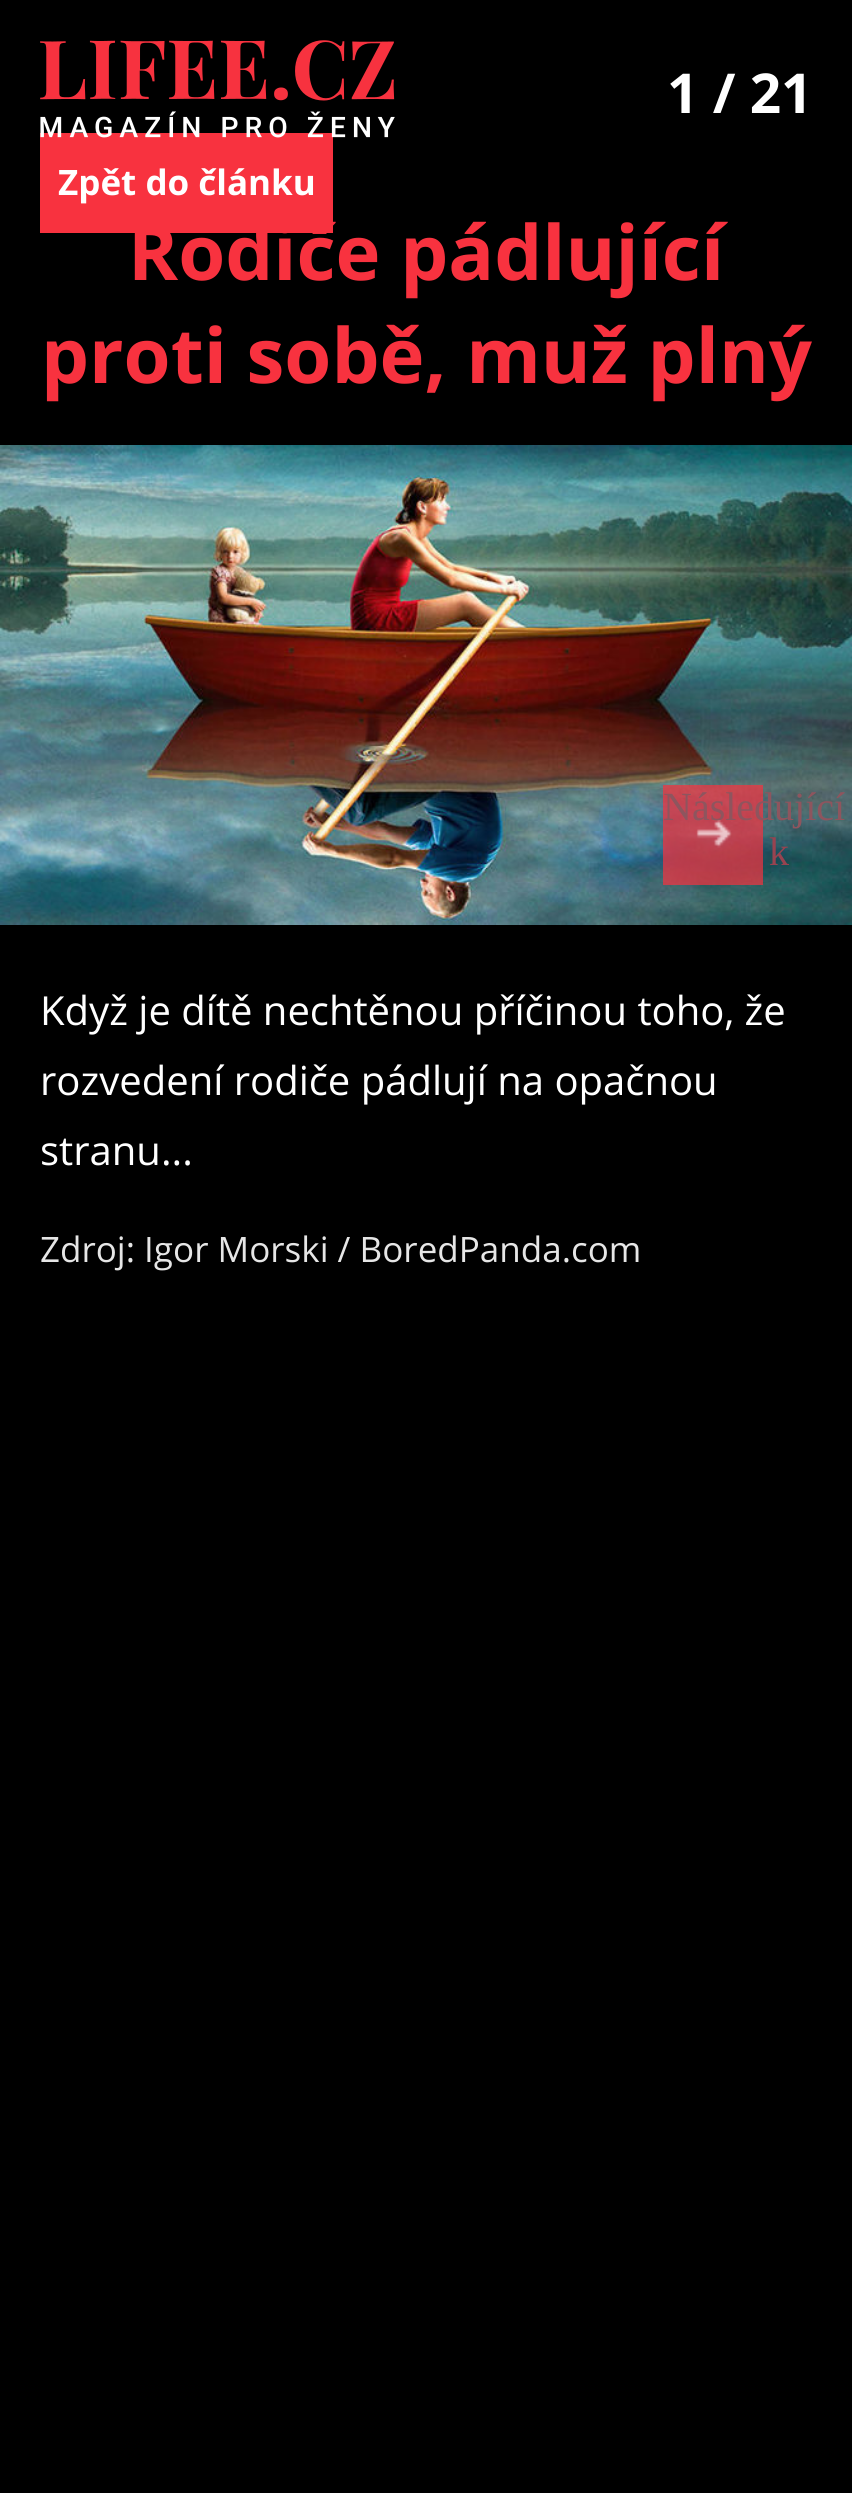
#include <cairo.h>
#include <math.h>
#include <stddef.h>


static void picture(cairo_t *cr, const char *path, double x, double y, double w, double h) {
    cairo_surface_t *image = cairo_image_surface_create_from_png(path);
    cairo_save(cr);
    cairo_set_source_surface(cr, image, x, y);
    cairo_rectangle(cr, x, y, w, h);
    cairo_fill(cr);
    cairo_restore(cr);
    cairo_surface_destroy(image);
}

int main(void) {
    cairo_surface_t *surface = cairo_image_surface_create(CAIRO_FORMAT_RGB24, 852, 2493);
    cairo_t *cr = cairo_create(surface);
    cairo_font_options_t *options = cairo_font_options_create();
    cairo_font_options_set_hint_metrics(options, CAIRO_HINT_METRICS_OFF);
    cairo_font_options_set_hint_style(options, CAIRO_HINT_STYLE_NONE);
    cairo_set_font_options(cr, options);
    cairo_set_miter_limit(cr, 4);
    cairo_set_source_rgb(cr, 0, 0, 0);
    cairo_paint(cr);
    cairo_set_source_rgb(cr, 0.969, 0.196, 0.247);
    cairo_rectangle(cr, 40, 133, 293, 100);
    cairo_fill(cr);
    picture(cr, "img1.png", 40, 40, 355, 98);
    cairo_select_font_face(cr, "Open Sans", CAIRO_FONT_SLANT_NORMAL, CAIRO_FONT_WEIGHT_BOLD);
    cairo_set_font_size(cr, 55);
    cairo_set_source_rgb(cr, 1, 1, 1);
    cairo_move_to(cr, 667, 113);
    cairo_show_text(cr, "1 / 21");
    cairo_set_font_size(cr, 35);
    cairo_move_to(cr, 58, 195);
    cairo_show_text(cr, "Zpět do článku");
    cairo_set_font_size(cr, 76);
    cairo_set_source_rgb(cr, 0.969, 0.196, 0.247);
    cairo_move_to(cr, 128, 280);
    cairo_show_text(cr, "Rodiče pádlující");
    cairo_move_to(cr, 41, 383);
    cairo_show_text(cr, "proti sobě, muž plný");
    picture(cr, "img2.png", 0, 445, 852, 480);
    cairo_set_source_rgba(cr, 0.969, 0.196, 0.247, 0.7);
    cairo_rectangle(cr, 663, 785, 100, 100);
    cairo_fill(cr);
    picture(cr, "img3.png", 696, 820, 36, 28);
    cairo_select_font_face(cr, "Liberation Serif", CAIRO_FONT_SLANT_NORMAL, CAIRO_FONT_WEIGHT_NORMAL);
    cairo_set_font_size(cr, 40);
    cairo_set_source_rgb(cr, 0.557, 0.333, 0.369);
    cairo_move_to(cr, 663, 820);
    cairo_show_text(cr, "Následující");
    cairo_set_source_rgb(cr, 0.596, 0.263, 0.314);
    cairo_move_to(cr, 769, 865);
    cairo_show_text(cr, "k");
    cairo_select_font_face(cr, "Open Sans", CAIRO_FONT_SLANT_NORMAL, CAIRO_FONT_WEIGHT_NORMAL);
    cairo_set_source_rgb(cr, 1, 1, 1);
    cairo_move_to(cr, 40, 1025);
    cairo_show_text(cr, "Když je dítě nechtěnou příčinou toho, že");
    cairo_move_to(cr, 40, 1095);
    cairo_show_text(cr, "rozvedení rodiče pádlují na opačnou");
    cairo_move_to(cr, 40, 1165);
    cairo_show_text(cr, "stranu...");
    cairo_set_font_size(cr, 35);
    cairo_set_source_rgb(cr, 0.902, 0.902, 0.902);
    cairo_move_to(cr, 40, 1262);
    cairo_show_text(cr, "Zdroj: Igor Morski / BoredPanda.com");
    cairo_surface_write_to_png(surface, "page.png");
    cairo_font_options_destroy(options);
    cairo_destroy(cr);
    cairo_surface_destroy(surface);
    return 0;
}
